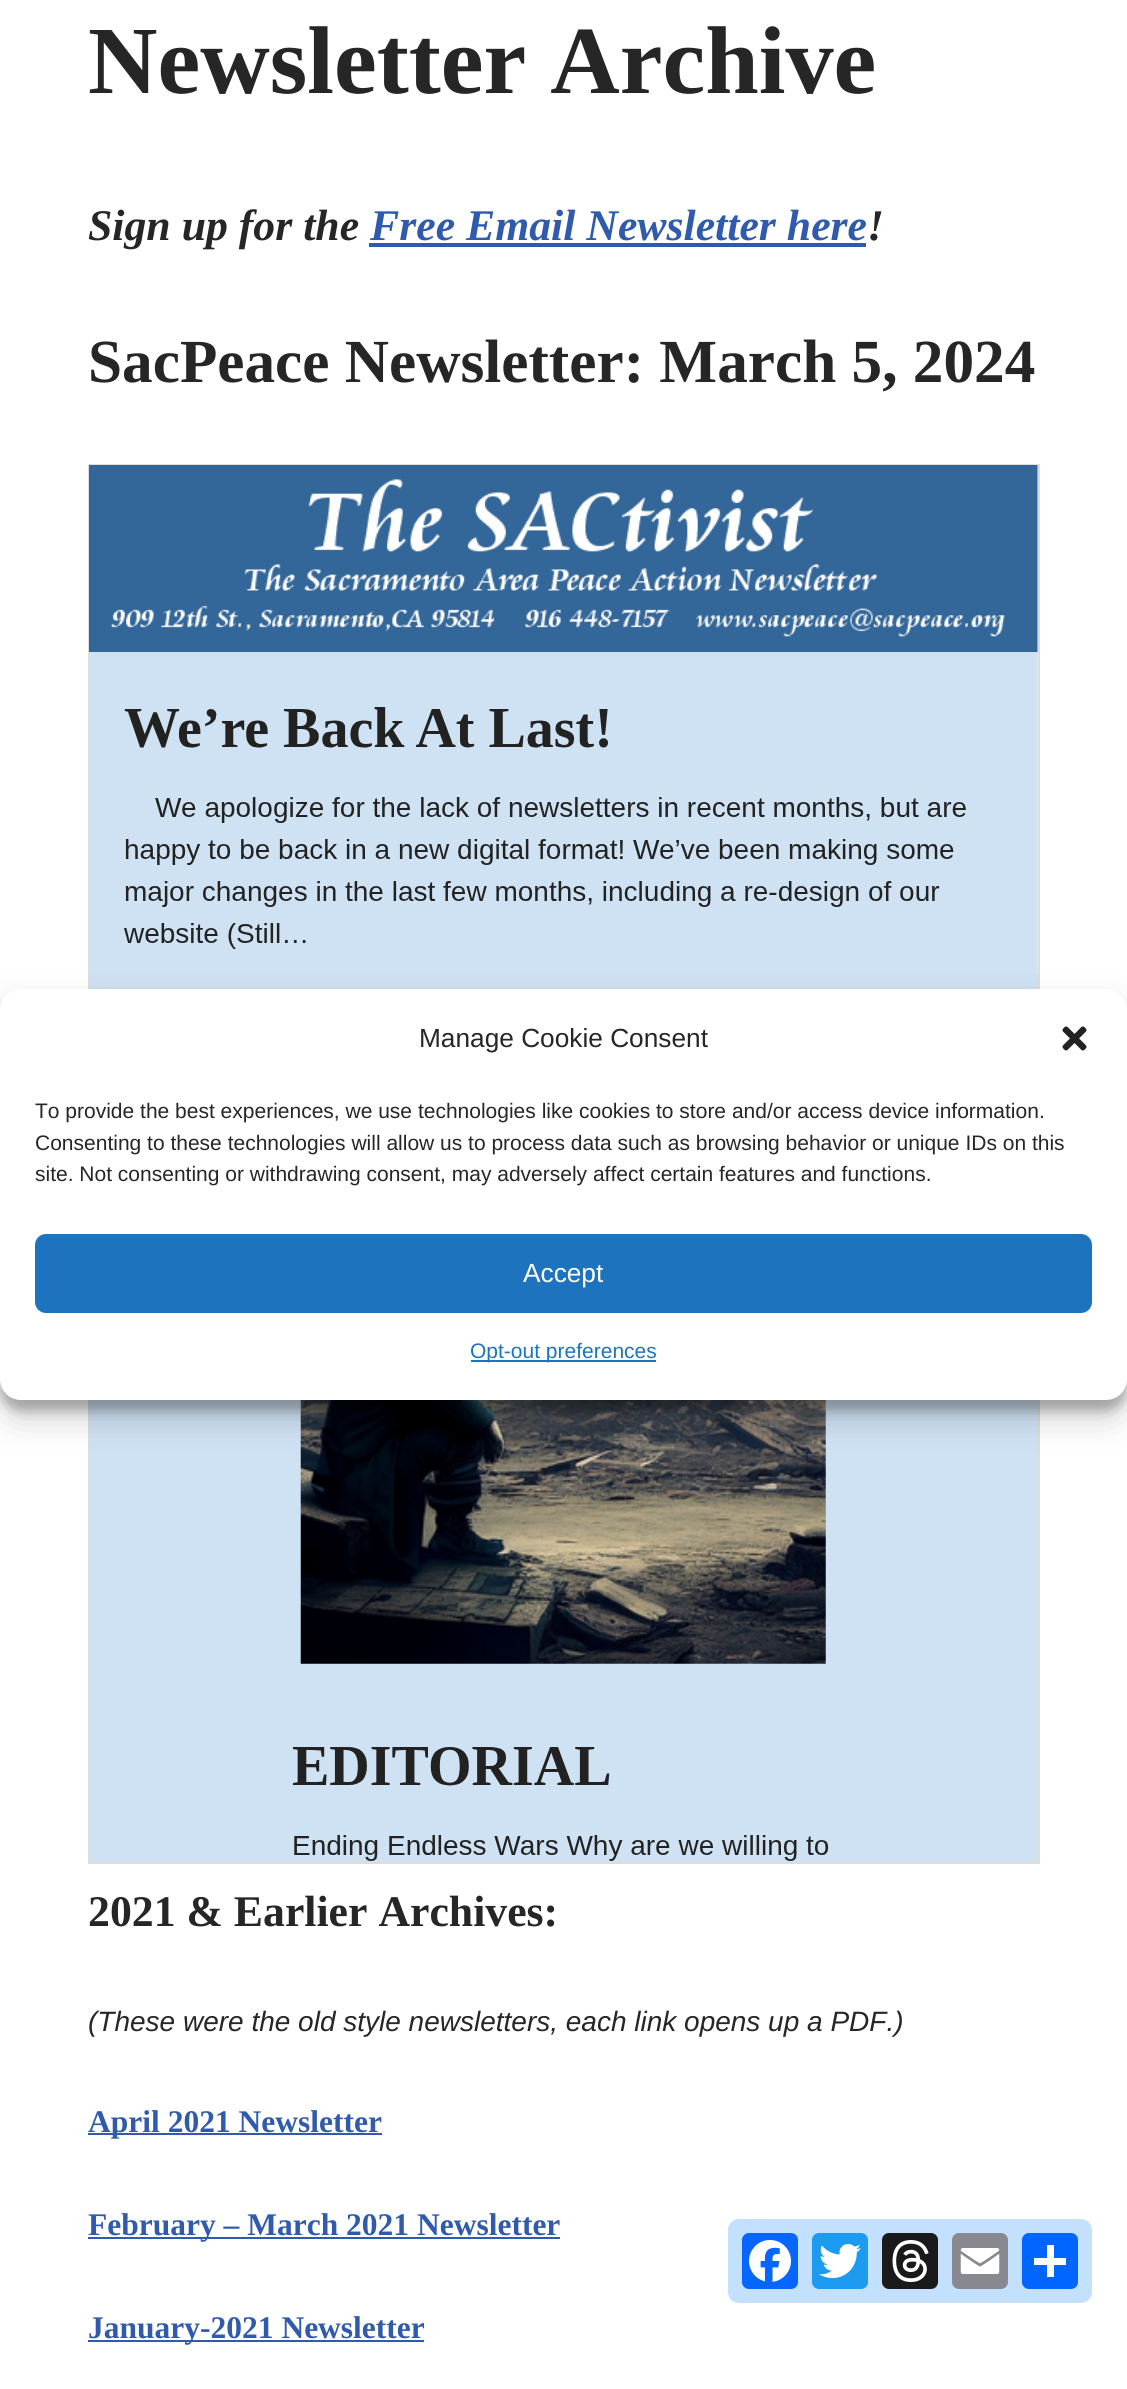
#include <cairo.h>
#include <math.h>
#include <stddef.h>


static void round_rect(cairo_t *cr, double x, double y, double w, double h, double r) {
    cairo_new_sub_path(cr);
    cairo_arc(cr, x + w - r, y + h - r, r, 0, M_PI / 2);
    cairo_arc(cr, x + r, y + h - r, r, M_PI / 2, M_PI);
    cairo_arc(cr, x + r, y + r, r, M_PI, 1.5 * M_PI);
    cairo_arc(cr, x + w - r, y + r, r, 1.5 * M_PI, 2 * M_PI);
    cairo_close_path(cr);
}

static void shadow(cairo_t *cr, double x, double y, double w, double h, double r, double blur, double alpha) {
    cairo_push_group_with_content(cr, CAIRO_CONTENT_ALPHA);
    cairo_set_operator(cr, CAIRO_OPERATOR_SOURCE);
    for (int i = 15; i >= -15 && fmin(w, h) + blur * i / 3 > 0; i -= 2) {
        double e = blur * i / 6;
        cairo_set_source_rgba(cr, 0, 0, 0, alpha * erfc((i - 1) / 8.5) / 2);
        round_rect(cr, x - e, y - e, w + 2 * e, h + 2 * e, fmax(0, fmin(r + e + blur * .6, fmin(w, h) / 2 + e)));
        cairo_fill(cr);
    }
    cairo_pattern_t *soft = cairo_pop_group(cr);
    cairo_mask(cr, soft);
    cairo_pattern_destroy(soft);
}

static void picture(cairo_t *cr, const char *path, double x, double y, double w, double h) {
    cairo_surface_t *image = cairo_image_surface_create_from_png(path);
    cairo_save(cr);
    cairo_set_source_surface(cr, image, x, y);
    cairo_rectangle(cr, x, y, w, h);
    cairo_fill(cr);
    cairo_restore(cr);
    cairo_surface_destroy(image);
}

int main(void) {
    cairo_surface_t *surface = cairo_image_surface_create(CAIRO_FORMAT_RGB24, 1127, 2389);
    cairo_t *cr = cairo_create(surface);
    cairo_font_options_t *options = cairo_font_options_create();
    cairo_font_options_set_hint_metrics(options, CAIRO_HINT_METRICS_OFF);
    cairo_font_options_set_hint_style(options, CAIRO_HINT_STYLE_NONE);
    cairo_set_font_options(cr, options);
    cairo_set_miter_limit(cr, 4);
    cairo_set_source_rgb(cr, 1, 1, 1);
    cairo_paint(cr);
    cairo_select_font_face(cr, "Liberation Serif", CAIRO_FONT_SLANT_NORMAL, CAIRO_FONT_WEIGHT_BOLD);
    cairo_set_font_size(cr, 96.25);
    cairo_set_source_rgb(cr, 0.153, 0.149, 0.149);
    cairo_move_to(cr, 88, 93);
    cairo_show_text(cr, "Newsletter Archive");
    cairo_select_font_face(cr, "Liberation Serif", CAIRO_FONT_SLANT_ITALIC, CAIRO_FONT_WEIGHT_BOLD);
    cairo_set_font_size(cr, 43.75);
    cairo_move_to(cr, 88, 240);
    cairo_show_text(cr, "Sign up for the");
    cairo_set_source_rgb(cr, 0.184, 0.353, 0.682);
    cairo_move_to(cr, 370, 240);
    cairo_show_text(cr, "Free Email Newsletter here");
    cairo_rectangle(cr, 369, 243, 497, 4);
    cairo_fill(cr);
    cairo_set_source_rgb(cr, 0.153, 0.149, 0.149);
    cairo_move_to(cr, 867, 240);
    cairo_show_text(cr, "!");
    cairo_select_font_face(cr, "Liberation Serif", CAIRO_FONT_SLANT_NORMAL, CAIRO_FONT_WEIGHT_BOLD);
    cairo_set_font_size(cr, 61.25);
    cairo_move_to(cr, 88, 382);
    cairo_show_text(cr, "SacPeace Newsletter: March 5, 2024");
    cairo_rectangle(cr, 89, 465, 950, 1398);
    cairo_set_source_rgb(cr, 0.867, 0.867, 0.867);
    cairo_stroke(cr);
    picture(cr, "img1.png", 89, 465, 949, 1397);
    cairo_set_font_size(cr, 43.75);
    cairo_set_source_rgb(cr, 0.153, 0.149, 0.149);
    cairo_move_to(cr, 88, 1926);
    cairo_show_text(cr, "2021 & Earlier Archives:");
    cairo_select_font_face(cr, "Liberation Sans", CAIRO_FONT_SLANT_ITALIC, CAIRO_FONT_WEIGHT_NORMAL);
    cairo_set_font_size(cr, 28);
    cairo_move_to(cr, 88, 2031);
    cairo_show_text(cr, "(These were the old style newsletters, each link opens up a PDF.)");
    cairo_set_source_rgb(cr, 0.184, 0.353, 0.682);
    cairo_rectangle(cr, 88, 2133, 294, 2);
    cairo_fill(cr);
    cairo_select_font_face(cr, "Liberation Serif", CAIRO_FONT_SLANT_NORMAL, CAIRO_FONT_WEIGHT_BOLD);
    cairo_set_font_size(cr, 31.5);
    cairo_move_to(cr, 88, 2132);
    cairo_show_text(cr, "April 2021 Newsletter");
    cairo_rectangle(cr, 88, 2237, 472, 2);
    cairo_fill(cr);
    cairo_move_to(cr, 88, 2235);
    cairo_show_text(cr, "February – March 2021 Newsletter");
    cairo_rectangle(cr, 88, 2340, 336, 2);
    cairo_fill(cr);
    cairo_move_to(cr, 88, 2338);
    cairo_show_text(cr, "January-2021 Newsletter");
    cairo_set_source_rgb(cr, 0, 0, 0);
    shadow(cr, 0, 999, 1127, 412, 21, 5, 0.23);
    shadow(cr, 0, 1006, 1127, 412, 21, 17.5, 0.19);
    cairo_set_source_rgb(cr, 1, 1, 1);
    round_rect(cr, 0, 989, 1127, 411, 21);
    cairo_fill(cr);
    cairo_select_font_face(cr, "Liberation Sans", CAIRO_FONT_SLANT_NORMAL, CAIRO_FONT_WEIGHT_NORMAL);
    cairo_set_font_size(cr, 26.25);
    cairo_set_source_rgb(cr, 0.153, 0.149, 0.149);
    cairo_move_to(cr, 419, 1047);
    cairo_show_text(cr, "Manage Cookie Consent");
    picture(cr, "img2.png", 1062, 1026, 25, 25);
    cairo_set_font_size(cr, 21);
    cairo_move_to(cr, 35, 1118);
    cairo_show_text(cr, "To provide the best experiences, we use technologies like cookies to store and/or access device information.");
    cairo_move_to(cr, 35, 1150);
    cairo_show_text(cr, "Consenting to these technologies will allow us to process data such as browsing behavior or unique IDs on this");
    cairo_move_to(cr, 35, 1181);
    cairo_show_text(cr, "site. Not consenting or withdrawing consent, may adversely affect certain features and functions.");
    cairo_set_source_rgb(cr, 0.118, 0.451, 0.745);
    round_rect(cr, 36, 1235, 1055, 77, 10);
    cairo_fill_preserve(cr);
    cairo_stroke(cr);
    cairo_set_font_size(cr, 26.25);
    cairo_set_source_rgb(cr, 1, 1, 1);
    cairo_move_to(cr, 523, 1282);
    cairo_show_text(cr, "Accept");
    cairo_set_source_rgb(cr, 0.118, 0.451, 0.745);
    cairo_rectangle(cr, 471, 1360, 185, 2);
    cairo_fill(cr);
    cairo_set_font_size(cr, 21);
    cairo_move_to(cr, 470, 1358);
    cairo_show_text(cr, "Opt-out preferences");
    cairo_set_source_rgb(cr, 0.769, 0.878, 1);
    round_rect(cr, 728, 2219, 364, 84, 11);
    cairo_fill(cr);
    cairo_set_source_rgb(cr, 0.031, 0.4, 1);
    round_rect(cr, 742, 2233, 56, 56, 7);
    cairo_fill(cr);
    picture(cr, "img3.png", 749, 2240, 42, 42);
    cairo_set_source_rgb(cr, 0.114, 0.608, 0.941);
    round_rect(cr, 812, 2233, 56, 56, 7);
    cairo_fill(cr);
    picture(cr, "img4.png", 819, 2243, 42, 36);
    cairo_set_source_rgb(cr, 0.102, 0.102, 0.102);
    round_rect(cr, 882, 2233, 56, 56, 7);
    cairo_fill(cr);
    picture(cr, "img5.png", 892, 2240, 37, 42);
    cairo_set_source_rgb(cr, 0.533, 0.537, 0.565);
    round_rect(cr, 952, 2233, 56, 56, 7);
    cairo_fill(cr);
    picture(cr, "img6.png", 960, 2248, 40, 26);
    cairo_set_source_rgb(cr, 0.004, 0.4, 1);
    round_rect(cr, 1022, 2233, 56, 56, 7);
    cairo_fill(cr);
    cairo_set_source_rgb(cr, 1, 1, 1);
    cairo_rectangle(cr, 1047, 2245, 7, 32);
    cairo_fill(cr);
    cairo_rectangle(cr, 1034, 2258, 32, 7);
    cairo_fill(cr);
    cairo_surface_write_to_png(surface, "page.png");
    cairo_font_options_destroy(options);
    cairo_destroy(cr);
    cairo_surface_destroy(surface);
    return 0;
}
